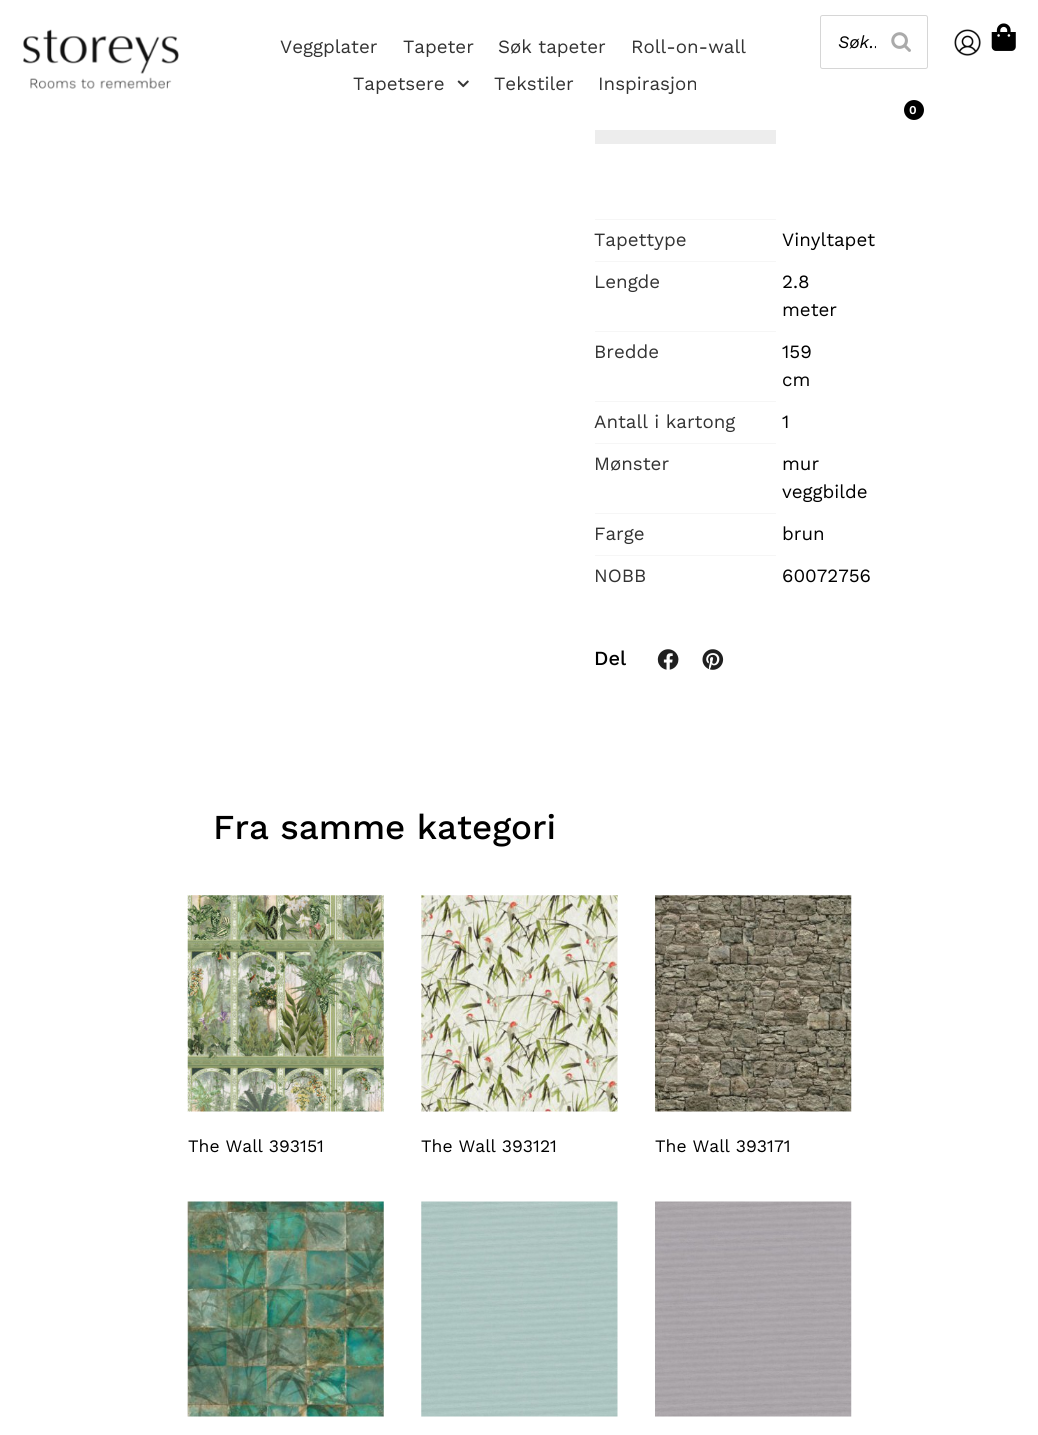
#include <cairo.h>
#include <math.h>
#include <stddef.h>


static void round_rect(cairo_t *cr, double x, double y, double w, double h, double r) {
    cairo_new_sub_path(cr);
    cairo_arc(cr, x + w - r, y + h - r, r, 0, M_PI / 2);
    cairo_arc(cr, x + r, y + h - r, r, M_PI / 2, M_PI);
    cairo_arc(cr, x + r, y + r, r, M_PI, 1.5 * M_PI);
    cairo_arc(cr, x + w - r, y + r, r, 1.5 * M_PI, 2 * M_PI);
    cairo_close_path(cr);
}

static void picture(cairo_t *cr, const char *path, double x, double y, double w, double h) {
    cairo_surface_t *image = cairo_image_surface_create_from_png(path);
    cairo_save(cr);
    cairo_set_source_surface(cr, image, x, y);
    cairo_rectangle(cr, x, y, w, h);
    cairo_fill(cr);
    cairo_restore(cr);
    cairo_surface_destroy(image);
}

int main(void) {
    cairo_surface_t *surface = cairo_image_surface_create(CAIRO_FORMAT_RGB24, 1038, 1435);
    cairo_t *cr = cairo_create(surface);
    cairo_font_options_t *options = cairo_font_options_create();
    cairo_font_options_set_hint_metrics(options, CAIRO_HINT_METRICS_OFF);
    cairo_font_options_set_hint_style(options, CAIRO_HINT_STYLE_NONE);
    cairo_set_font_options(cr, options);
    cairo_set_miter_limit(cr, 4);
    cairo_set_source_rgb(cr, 1, 1, 1);
    cairo_paint(cr);
    picture(cr, "img1.png", 23, 29, 156, 60);
    cairo_select_font_face(cr, "Work Sans", CAIRO_FONT_SLANT_NORMAL, CAIRO_FONT_WEIGHT_NORMAL);
    cairo_set_font_size(cr, 18.75);
    cairo_set_source_rgb(cr, 0.2, 0.2, 0.2);
    cairo_move_to(cr, 280, 53);
    cairo_show_text(cr, "Veggplater");
    cairo_move_to(cr, 403, 53);
    cairo_show_text(cr, "Tapeter");
    cairo_move_to(cr, 498, 53);
    cairo_show_text(cr, "Søk tapeter");
    cairo_move_to(cr, 631, 53);
    cairo_show_text(cr, "Roll-on-wall");
    cairo_move_to(cr, 353, 90);
    cairo_show_text(cr, "Tapetsere");
    picture(cr, "img2.png", 457, 80, 12, 8);
    cairo_move_to(cr, 494, 90);
    cairo_show_text(cr, "Tekstiler");
    cairo_move_to(cr, 598, 90);
    cairo_show_text(cr, "Inspirasjon");
    round_rect(cr, 820.5, 15.5, 107, 53, 2);
    cairo_set_source_rgb(cr, 0.839, 0.839, 0.839);
    cairo_set_line_width(cr, 1);
    cairo_stroke(cr);
    cairo_save(cr);
    cairo_rectangle(cr, 834, 31, 42, 20);
    cairo_clip(cr);
    cairo_select_font_face(cr, "Work Sans", CAIRO_FONT_SLANT_ITALIC, CAIRO_FONT_WEIGHT_NORMAL);
    cairo_set_font_size(cr, 17.5);
    cairo_set_source_rgb(cr, 0, 0, 0);
    cairo_move_to(cr, 838, 48);
    cairo_show_text(cr, "Søk…");
    cairo_restore(cr);
    picture(cr, "img3.png", 891, 32, 20, 20);
    picture(cr, "img4.png", 954, 29, 27, 27);
    picture(cr, "img5.png", 991, 23, 25, 28);
    cairo_set_source_rgb(cr, 0, 0, 0);
    cairo_arc(cr, 914, 110, 10, 0, 2 * M_PI);
    cairo_fill(cr);
    cairo_select_font_face(cr, "Work Sans SemiBold", CAIRO_FONT_SLANT_NORMAL, CAIRO_FONT_WEIGHT_NORMAL);
    cairo_set_font_size(cr, 12);
    cairo_set_source_rgb(cr, 1, 1, 1);
    cairo_move_to(cr, 909, 114);
    cairo_show_text(cr, "0");
    cairo_set_source_rgb(cr, 0.929, 0.929, 0.929);
    cairo_rectangle(cr, 595, 130, 181, 14);
    cairo_fill(cr);
    cairo_set_source_rgb(cr, 0.961, 0.961, 0.961);
    cairo_rectangle(cr, 595, 219, 181, 1);
    cairo_fill(cr);
    cairo_select_font_face(cr, "Work Sans", CAIRO_FONT_SLANT_NORMAL, CAIRO_FONT_WEIGHT_NORMAL);
    cairo_set_font_size(cr, 18.75);
    cairo_set_source_rgb(cr, 0.2, 0.2, 0.2);
    cairo_move_to(cr, 594, 246);
    cairo_show_text(cr, "Tapettype");
    cairo_set_source_rgb(cr, 0, 0, 0);
    cairo_move_to(cr, 782, 246);
    cairo_show_text(cr, "Vinyltapet");
    cairo_set_source_rgb(cr, 0.961, 0.961, 0.961);
    cairo_rectangle(cr, 595, 261, 181, 1);
    cairo_fill(cr);
    cairo_set_source_rgb(cr, 0.2, 0.2, 0.2);
    cairo_move_to(cr, 594, 288);
    cairo_show_text(cr, "Lengde");
    cairo_set_source_rgb(cr, 0, 0, 0);
    cairo_move_to(cr, 782, 288);
    cairo_show_text(cr, "2.8");
    cairo_move_to(cr, 782, 316);
    cairo_show_text(cr, "meter");
    cairo_set_source_rgb(cr, 0.961, 0.961, 0.961);
    cairo_rectangle(cr, 595, 331, 181, 1);
    cairo_fill(cr);
    cairo_set_source_rgb(cr, 0.2, 0.2, 0.2);
    cairo_move_to(cr, 594, 358);
    cairo_show_text(cr, "Bredde");
    cairo_set_source_rgb(cr, 0, 0, 0);
    cairo_move_to(cr, 782, 358);
    cairo_show_text(cr, "159");
    cairo_move_to(cr, 782, 386);
    cairo_show_text(cr, "cm");
    cairo_set_source_rgb(cr, 0.961, 0.961, 0.961);
    cairo_rectangle(cr, 595, 401, 181, 1);
    cairo_fill(cr);
    cairo_set_source_rgb(cr, 0.2, 0.2, 0.2);
    cairo_move_to(cr, 594, 428);
    cairo_show_text(cr, "Antall i kartong");
    cairo_set_source_rgb(cr, 0, 0, 0);
    cairo_move_to(cr, 782, 428);
    cairo_show_text(cr, "1");
    cairo_set_source_rgb(cr, 0.961, 0.961, 0.961);
    cairo_rectangle(cr, 595, 443, 181, 1);
    cairo_fill(cr);
    cairo_set_source_rgb(cr, 0.2, 0.2, 0.2);
    cairo_move_to(cr, 594, 470);
    cairo_show_text(cr, "Mønster");
    cairo_set_source_rgb(cr, 0, 0, 0);
    cairo_move_to(cr, 782, 470);
    cairo_show_text(cr, "mur");
    cairo_move_to(cr, 782, 498);
    cairo_show_text(cr, "veggbilde");
    cairo_set_source_rgb(cr, 0.961, 0.961, 0.961);
    cairo_rectangle(cr, 595, 513, 181, 1);
    cairo_fill(cr);
    cairo_set_source_rgb(cr, 0.2, 0.2, 0.2);
    cairo_move_to(cr, 594, 540);
    cairo_show_text(cr, "Farge");
    cairo_set_source_rgb(cr, 0, 0, 0);
    cairo_move_to(cr, 782, 540);
    cairo_show_text(cr, "brun");
    cairo_set_source_rgb(cr, 0.961, 0.961, 0.961);
    cairo_rectangle(cr, 595, 555, 181, 1);
    cairo_fill(cr);
    cairo_set_source_rgb(cr, 0.2, 0.2, 0.2);
    cairo_move_to(cr, 594, 582);
    cairo_show_text(cr, "NOBB");
    cairo_set_source_rgb(cr, 0, 0, 0);
    cairo_move_to(cr, 782, 582);
    cairo_show_text(cr, "60072756");
    cairo_select_font_face(cr, "Work Sans Medium", CAIRO_FONT_SLANT_NORMAL, CAIRO_FONT_WEIGHT_NORMAL);
    cairo_set_font_size(cr, 20);
    cairo_move_to(cr, 594, 665);
    cairo_show_text(cr, "Del");
    picture(cr, "img6.png", 657, 649, 22, 21);
    picture(cr, "img7.png", 702, 649, 22, 21);
    cairo_set_font_size(cr, 35);
    cairo_move_to(cr, 213, 839);
    cairo_show_text(cr, "Fra samme kategori");
    picture(cr, "img8.png", 187, 895, 197, 217);
    cairo_select_font_face(cr, "Work Sans", CAIRO_FONT_SLANT_NORMAL, CAIRO_FONT_WEIGHT_NORMAL);
    cairo_set_font_size(cr, 17.5);
    cairo_move_to(cr, 188, 1152);
    cairo_show_text(cr, "The Wall 393151");
    picture(cr, "img9.png", 421, 895, 197, 217);
    cairo_move_to(cr, 421, 1152);
    cairo_show_text(cr, "The Wall 393121");
    picture(cr, "img10.png", 655, 895, 197, 217);
    cairo_move_to(cr, 655, 1152);
    cairo_show_text(cr, "The Wall 393171");
    picture(cr, "img11.png", 187, 1201, 197, 216);
    picture(cr, "img12.png", 421, 1201, 197, 216);
    picture(cr, "img13.png", 655, 1201, 197, 216);
    cairo_surface_write_to_png(surface, "page.png");
    cairo_font_options_destroy(options);
    cairo_destroy(cr);
    cairo_surface_destroy(surface);
    return 0;
}
